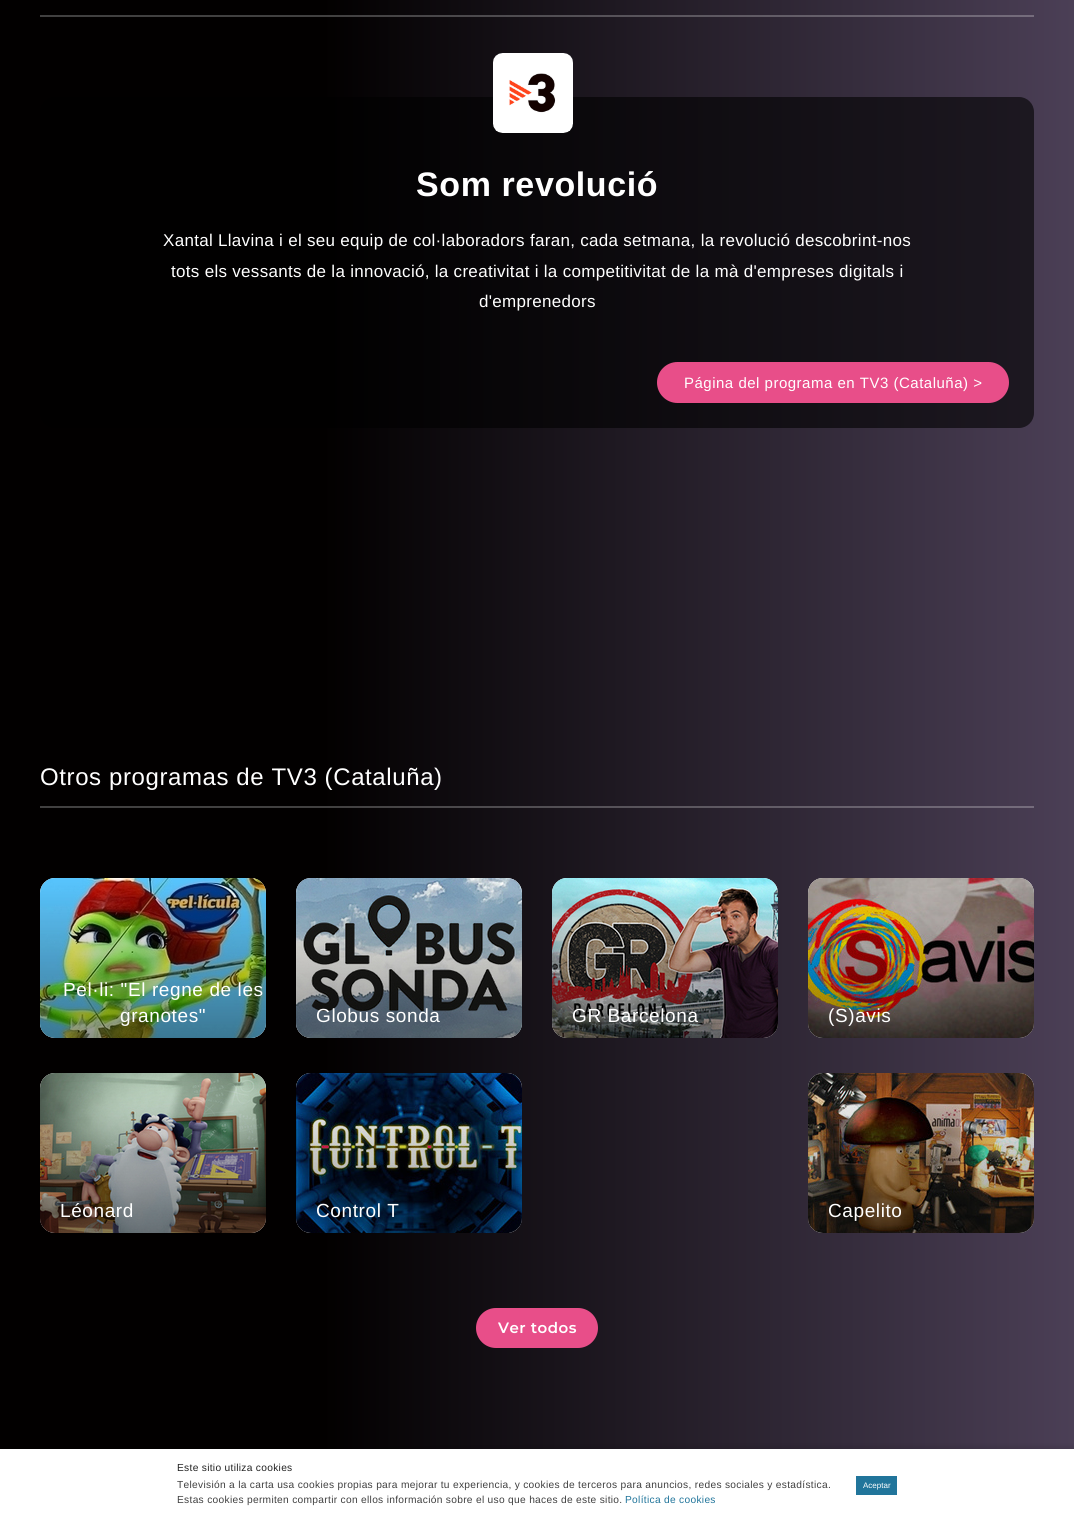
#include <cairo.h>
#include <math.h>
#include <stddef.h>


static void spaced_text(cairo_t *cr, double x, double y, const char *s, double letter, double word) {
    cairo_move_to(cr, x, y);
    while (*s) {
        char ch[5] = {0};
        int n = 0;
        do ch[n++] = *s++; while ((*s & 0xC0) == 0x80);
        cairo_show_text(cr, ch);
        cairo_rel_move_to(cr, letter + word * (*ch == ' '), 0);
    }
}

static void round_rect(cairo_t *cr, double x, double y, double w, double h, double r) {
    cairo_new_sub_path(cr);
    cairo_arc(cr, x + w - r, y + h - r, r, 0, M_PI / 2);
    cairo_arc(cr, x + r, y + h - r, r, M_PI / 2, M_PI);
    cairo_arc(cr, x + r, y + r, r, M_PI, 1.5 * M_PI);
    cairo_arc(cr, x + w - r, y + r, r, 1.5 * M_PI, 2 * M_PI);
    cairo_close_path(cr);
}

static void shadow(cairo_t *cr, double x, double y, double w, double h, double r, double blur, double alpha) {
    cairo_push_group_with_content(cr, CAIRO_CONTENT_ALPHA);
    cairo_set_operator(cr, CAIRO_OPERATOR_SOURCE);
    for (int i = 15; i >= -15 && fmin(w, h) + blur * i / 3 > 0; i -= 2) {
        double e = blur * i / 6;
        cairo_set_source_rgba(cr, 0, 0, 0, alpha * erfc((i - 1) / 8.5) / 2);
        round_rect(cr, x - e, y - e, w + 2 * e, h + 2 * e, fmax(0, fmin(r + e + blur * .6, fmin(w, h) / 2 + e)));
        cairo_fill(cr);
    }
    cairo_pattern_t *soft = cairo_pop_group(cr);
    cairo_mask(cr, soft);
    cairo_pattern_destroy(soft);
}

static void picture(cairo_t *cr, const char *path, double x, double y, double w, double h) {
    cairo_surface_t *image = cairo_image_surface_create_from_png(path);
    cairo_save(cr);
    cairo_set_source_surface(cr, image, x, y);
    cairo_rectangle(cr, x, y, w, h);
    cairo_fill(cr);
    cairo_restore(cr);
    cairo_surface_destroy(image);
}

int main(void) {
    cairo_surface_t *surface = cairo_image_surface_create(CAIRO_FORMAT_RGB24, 1074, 1522);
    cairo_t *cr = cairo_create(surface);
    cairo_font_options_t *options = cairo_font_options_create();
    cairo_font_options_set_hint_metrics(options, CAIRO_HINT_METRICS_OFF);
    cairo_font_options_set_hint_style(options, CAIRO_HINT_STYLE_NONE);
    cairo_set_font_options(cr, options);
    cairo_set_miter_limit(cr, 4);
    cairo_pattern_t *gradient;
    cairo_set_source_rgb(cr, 1, 1, 1);
    cairo_paint(cr);
    gradient = cairo_pattern_create_linear(0, 761, 1074, 761);
    cairo_pattern_add_color_stop_rgba(gradient, 0.3, 0.008, 0, 0, 1);
    cairo_pattern_add_color_stop_rgba(gradient, 1, 0.294, 0.247, 0.337, 1);
    cairo_set_source(cr, gradient);
    cairo_pattern_destroy(gradient);
    cairo_rectangle(cr, 0, 0, 1074, 1449);
    cairo_fill(cr);
    gradient = cairo_pattern_create_linear(0, 761, 1074, 761);
    cairo_pattern_add_color_stop_rgba(gradient, 0.3, 0.255, 0.251, 0.251, 1);
    cairo_pattern_add_color_stop_rgba(gradient, 1, 0.471, 0.435, 0.502, 1);
    cairo_set_source(cr, gradient);
    cairo_pattern_destroy(gradient);
    cairo_rectangle(cr, 40, 806, 994, 2);
    cairo_fill(cr);
    cairo_rectangle(cr, 40, 15, 994, 2);
    cairo_fill(cr);
    cairo_set_source_rgba(cr, 0, 0, 0, 0.6);
    round_rect(cr, 40, 97, 994, 331, 15);
    cairo_fill(cr);
    picture(cr, "img1.png", 493, 53, 80, 80);
    cairo_select_font_face(cr, "Liberation Sans", CAIRO_FONT_SLANT_NORMAL, CAIRO_FONT_WEIGHT_BOLD);
    cairo_set_font_size(cr, 34);
    cairo_set_source_rgb(cr, 1, 1, 1);
    spaced_text(cr, 416, 196, "Som revolució", 0.6, 0);
    cairo_select_font_face(cr, "Liberation Sans", CAIRO_FONT_SLANT_NORMAL, CAIRO_FONT_WEIGHT_NORMAL);
    cairo_set_font_size(cr, 17);
    spaced_text(cr, 163, 246, "Xantal Llavina i el seu equip de col·laboradors faran, cada setmana, la revolució descobrint-nos", 0.3, 0);
    spaced_text(cr, 171, 277, "tots els vessants de la innovació, la creativitat i la competitivitat de la mà d'empreses digitals i", 0.3, 0);
    spaced_text(cr, 479, 307, "d'emprenedors", 0.3, 0);
    cairo_set_source_rgb(cr, 0.91, 0.306, 0.537);
    round_rect(cr, 657, 362, 352, 41, 20.5);
    cairo_fill(cr);
    cairo_set_font_size(cr, 15);
    cairo_set_source_rgb(cr, 1, 1, 1);
    spaced_text(cr, 684, 388, "Página del programa en TV3 (Cataluña) >", 0.5, 0);
    cairo_set_font_size(cr, 24);
    spaced_text(cr, 40, 785, "Otros programas de TV3 (Cataluña)", 0.6, 0);
    round_rect(cr, 40, 878, 226, 160, 15);
    cairo_fill(cr);
    picture(cr, "img2.png", 40, 878, 226, 160);
    gradient = cairo_pattern_create_linear(153, 878, 153, 1038);
    cairo_pattern_add_color_stop_rgba(gradient, 0, 0, 0, 0, 0);
    cairo_pattern_add_color_stop_rgba(gradient, 1, 0, 0, 0, 0.42);
    cairo_set_source(cr, gradient);
    cairo_pattern_destroy(gradient);
    round_rect(cr, 40, 878, 226, 160, 15);
    cairo_fill(cr);
    cairo_set_font_size(cr, 19);
    cairo_set_source_rgb(cr, 1, 1, 1);
    spaced_text(cr, 63, 996, "Pel·li: \"El regne de les", 0.6, 0);
    spaced_text(cr, 120, 1022, "granotes\"", 0.6, 0);
    round_rect(cr, 296, 878, 226, 160, 15);
    cairo_fill(cr);
    picture(cr, "img3.png", 296, 878, 226, 160);
    gradient = cairo_pattern_create_linear(409, 878, 409, 1038);
    cairo_pattern_add_color_stop_rgba(gradient, 0, 0, 0, 0, 0);
    cairo_pattern_add_color_stop_rgba(gradient, 1, 0, 0, 0, 0.42);
    cairo_set_source(cr, gradient);
    cairo_pattern_destroy(gradient);
    round_rect(cr, 296, 878, 226, 160, 15);
    cairo_fill(cr);
    cairo_set_source_rgb(cr, 1, 1, 1);
    spaced_text(cr, 316, 1022, "Globus sonda", 0.6, 0);
    round_rect(cr, 552, 878, 226, 160, 15);
    cairo_fill(cr);
    picture(cr, "img4.png", 552, 878, 226, 160);
    gradient = cairo_pattern_create_linear(665, 878, 665, 1038);
    cairo_pattern_add_color_stop_rgba(gradient, 0, 0, 0, 0, 0);
    cairo_pattern_add_color_stop_rgba(gradient, 1, 0, 0, 0, 0.42);
    cairo_set_source(cr, gradient);
    cairo_pattern_destroy(gradient);
    round_rect(cr, 552, 878, 226, 160, 15);
    cairo_fill(cr);
    cairo_set_source_rgb(cr, 1, 1, 1);
    spaced_text(cr, 572, 1022, "GR Barcelona", 0.6, 0);
    round_rect(cr, 808, 878, 226, 160, 15);
    cairo_fill(cr);
    picture(cr, "img5.png", 808, 878, 226, 160);
    gradient = cairo_pattern_create_linear(921, 878, 921, 1038);
    cairo_pattern_add_color_stop_rgba(gradient, 0, 0, 0, 0, 0);
    cairo_pattern_add_color_stop_rgba(gradient, 1, 0, 0, 0, 0.42);
    cairo_set_source(cr, gradient);
    cairo_pattern_destroy(gradient);
    round_rect(cr, 808, 878, 226, 160, 15);
    cairo_fill(cr);
    cairo_set_source_rgb(cr, 1, 1, 1);
    spaced_text(cr, 828, 1022, "(S)avis", 0.6, 0);
    round_rect(cr, 40, 1073, 226, 160, 15);
    cairo_fill(cr);
    picture(cr, "img6.png", 40, 1073, 226, 160);
    gradient = cairo_pattern_create_linear(153, 1073, 153, 1233);
    cairo_pattern_add_color_stop_rgba(gradient, 0, 0, 0, 0, 0);
    cairo_pattern_add_color_stop_rgba(gradient, 1, 0, 0, 0, 0.42);
    cairo_set_source(cr, gradient);
    cairo_pattern_destroy(gradient);
    round_rect(cr, 40, 1073, 226, 160, 15);
    cairo_fill(cr);
    cairo_set_source_rgb(cr, 1, 1, 1);
    spaced_text(cr, 60, 1217, "Léonard", 0.6, 0);
    round_rect(cr, 296, 1073, 226, 160, 15);
    cairo_fill(cr);
    picture(cr, "img7.png", 296, 1073, 226, 160);
    gradient = cairo_pattern_create_linear(409, 1073, 409, 1233);
    cairo_pattern_add_color_stop_rgba(gradient, 0, 0, 0, 0, 0);
    cairo_pattern_add_color_stop_rgba(gradient, 1, 0, 0, 0, 0.42);
    cairo_set_source(cr, gradient);
    cairo_pattern_destroy(gradient);
    round_rect(cr, 296, 1073, 226, 160, 15);
    cairo_fill(cr);
    cairo_set_source_rgb(cr, 1, 1, 1);
    spaced_text(cr, 316, 1217, "Control T", 0.6, 0);
    round_rect(cr, 808, 1073, 226, 160, 15);
    cairo_fill(cr);
    picture(cr, "img8.png", 808, 1073, 226, 160);
    gradient = cairo_pattern_create_linear(921, 1073, 921, 1233);
    cairo_pattern_add_color_stop_rgba(gradient, 0, 0, 0, 0, 0);
    cairo_pattern_add_color_stop_rgba(gradient, 1, 0, 0, 0, 0.42);
    cairo_set_source(cr, gradient);
    cairo_pattern_destroy(gradient);
    round_rect(cr, 808, 1073, 226, 160, 15);
    cairo_fill(cr);
    cairo_set_source_rgb(cr, 1, 1, 1);
    spaced_text(cr, 828, 1217, "Capelito", 0.6, 0);
    cairo_set_source_rgb(cr, 0.91, 0.306, 0.537);
    round_rect(cr, 476, 1308, 122, 40, 20);
    cairo_fill(cr);
    cairo_select_font_face(cr, "Montserrat SemiBold", CAIRO_FONT_SLANT_NORMAL, CAIRO_FONT_WEIGHT_NORMAL);
    cairo_set_font_size(cr, 15);
    cairo_set_source_rgb(cr, 1, 1, 1);
    spaced_text(cr, 498, 1333, "Ver todos", 0.5, 0);
    cairo_set_source_rgb(cr, 0, 0, 0);
    shadow(cr, 0, 1446, 1074, 73, 0, 2.5, 0.1);
    cairo_set_source_rgb(cr, 1, 1, 1);
    cairo_rectangle(cr, 0, 1449, 1074, 73);
    cairo_fill(cr);
    cairo_select_font_face(cr, "Liberation Sans", CAIRO_FONT_SLANT_NORMAL, CAIRO_FONT_WEIGHT_NORMAL);
    cairo_set_font_size(cr, 10.2);
    cairo_set_source_rgb(cr, 0.133, 0.133, 0.133);
    spaced_text(cr, 177, 1471, "Este sitio utiliza cookies", 0.3, 0);
    cairo_set_source_rgb(cr, 0.251, 0.251, 0.251);
    spaced_text(cr, 177, 1488, "Televisión a la carta usa cookies propias para mejorar tu experiencia, y cookies de terceros para anuncios, redes sociales y estadística.", 0.3, 0);
    spaced_text(cr, 177, 1503, "Estas cookies permiten compartir con ellos información sobre el uso que haces de este sitio.", 0.3, 0);
    cairo_set_source_rgb(cr, 0.129, 0.459, 0.608);
    spaced_text(cr, 625, 1503, "Política de cookies", 0.3, 0);
    cairo_rectangle(cr, 856, 1476, 41, 19);
    cairo_fill(cr);
    cairo_set_font_size(cr, 8);
    cairo_set_source_rgb(cr, 1, 1, 1);
    cairo_move_to(cr, 863, 1488);
    cairo_show_text(cr, "Aceptar");
    cairo_surface_write_to_png(surface, "page.png");
    cairo_font_options_destroy(options);
    cairo_destroy(cr);
    cairo_surface_destroy(surface);
    return 0;
}
